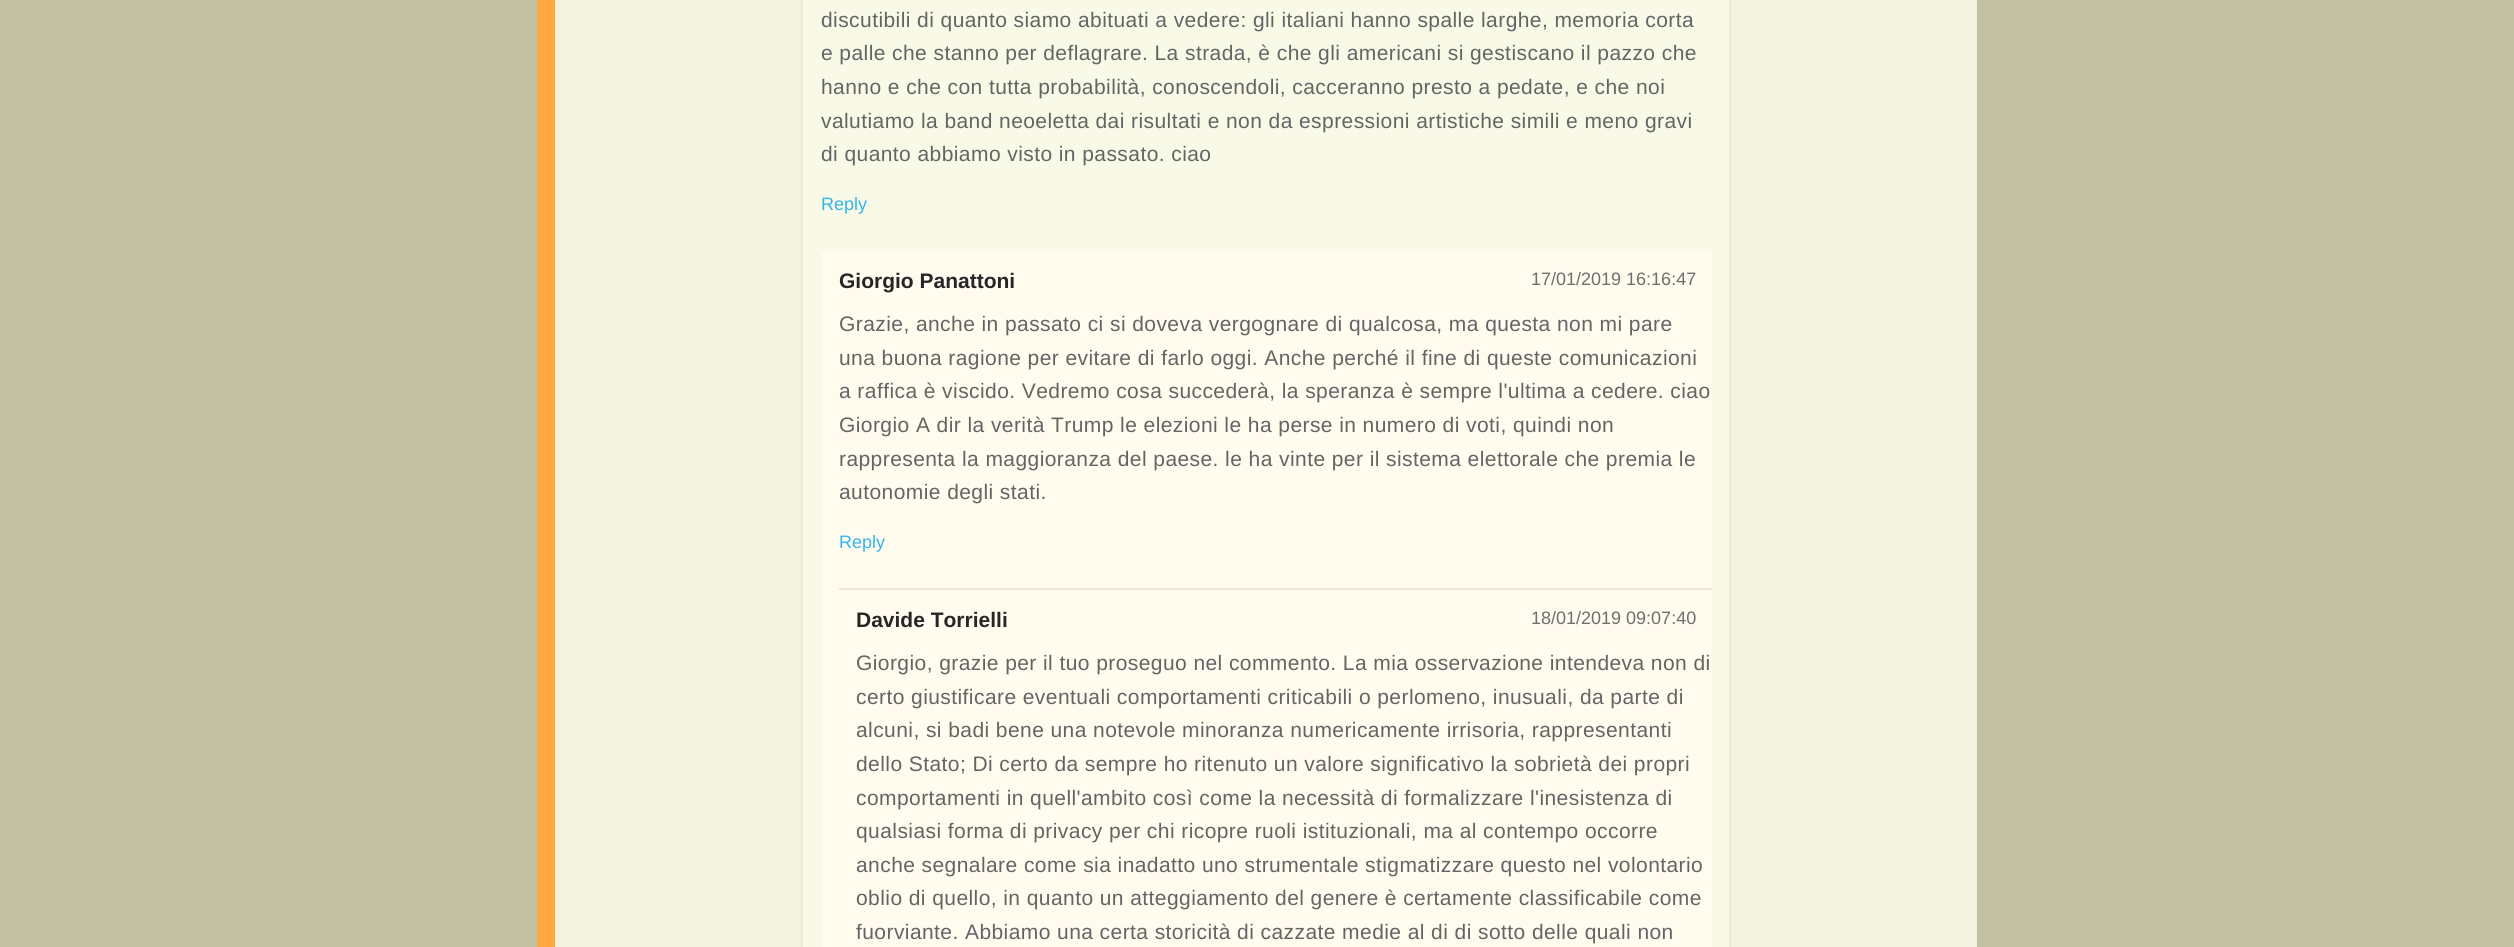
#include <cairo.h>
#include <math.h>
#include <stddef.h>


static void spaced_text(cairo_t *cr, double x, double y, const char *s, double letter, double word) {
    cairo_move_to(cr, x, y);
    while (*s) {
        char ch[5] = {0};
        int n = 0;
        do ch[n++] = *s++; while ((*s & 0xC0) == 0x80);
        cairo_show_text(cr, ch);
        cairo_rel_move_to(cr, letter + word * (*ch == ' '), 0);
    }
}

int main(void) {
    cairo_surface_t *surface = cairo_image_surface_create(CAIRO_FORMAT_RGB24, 2514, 947);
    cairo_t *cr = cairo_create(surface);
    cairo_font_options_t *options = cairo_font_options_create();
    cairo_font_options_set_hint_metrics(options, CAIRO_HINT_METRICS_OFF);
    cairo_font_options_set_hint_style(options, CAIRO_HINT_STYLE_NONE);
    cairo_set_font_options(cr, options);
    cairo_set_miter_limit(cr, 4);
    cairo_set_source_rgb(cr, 0.761, 0.757, 0.643);
    cairo_paint(cr);
    cairo_set_source_rgb(cr, 1, 0.655, 0.255);
    cairo_rectangle(cr, 537, 0, 18, 947);
    cairo_fill(cr);
    cairo_set_source_rgb(cr, 0.953, 0.945, 0.875);
    cairo_rectangle(cr, 555, 0, 1422, 947);
    cairo_fill(cr);
    cairo_set_source_rgb(cr, 0.976, 0.973, 0.91);
    cairo_rectangle(cr, 802, -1, 928, 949);
    cairo_fill_preserve(cr);
    cairo_set_source_rgb(cr, 0.925, 0.902, 0.824);
    cairo_stroke(cr);
    cairo_select_font_face(cr, "Liberation Sans", CAIRO_FONT_SLANT_NORMAL, CAIRO_FONT_WEIGHT_NORMAL);
    cairo_set_font_size(cr, 21);
    cairo_set_source_rgb(cr, 0.392, 0.392, 0.392);
    spaced_text(cr, 821, 27, "discutibili di quanto siamo abituati a vedere: gli italiani hanno spalle larghe, memoria corta", 0.42, 0);
    spaced_text(cr, 821, 60, "e palle che stanno per deflagrare. La strada, è che gli americani si gestiscano il pazzo che", 0.42, 0);
    spaced_text(cr, 821, 94, "hanno e che con tutta probabilità, conoscendoli, cacceranno presto a pedate, e che noi", 0.42, 0);
    spaced_text(cr, 821, 128, "valutiamo la band neoeletta dai risultati e non da espressioni artistiche simili e meno gravi", 0.42, 0);
    spaced_text(cr, 821, 161, "di quanto abbiamo visto in passato. ciao", 0.42, 0);
    cairo_set_font_size(cr, 18);
    cairo_set_source_rgb(cr, 0.192, 0.71, 0.922);
    cairo_move_to(cr, 821, 210);
    cairo_show_text(cr, "Reply");
    cairo_set_source_rgb(cr, 1, 0.984, 0.937);
    cairo_rectangle(cr, 821, 251, 891, 696);
    cairo_fill(cr);
    cairo_select_font_face(cr, "Liberation Sans", CAIRO_FONT_SLANT_NORMAL, CAIRO_FONT_WEIGHT_BOLD);
    cairo_set_font_size(cr, 21);
    cairo_set_source_rgb(cr, 0.149, 0.149, 0.149);
    cairo_move_to(cr, 839, 288);
    cairo_show_text(cr, "Giorgio Panattoni");
    cairo_select_font_face(cr, "Liberation Sans", CAIRO_FONT_SLANT_NORMAL, CAIRO_FONT_WEIGHT_NORMAL);
    cairo_set_font_size(cr, 18);
    cairo_set_source_rgb(cr, 0.431, 0.431, 0.431);
    cairo_move_to(cr, 1531, 285);
    cairo_show_text(cr, "17/01/2019 16:16:47");
    cairo_set_font_size(cr, 21);
    cairo_set_source_rgb(cr, 0.392, 0.392, 0.392);
    spaced_text(cr, 839, 331, "Grazie, anche in passato ci si doveva vergognare di qualcosa, ma questa non mi pare", 0.42, 0);
    spaced_text(cr, 839, 365, "una buona ragione per evitare di farlo oggi. Anche perché il fine di queste comunicazioni", 0.42, 0);
    spaced_text(cr, 839, 398, "a raffica è viscido. Vedremo cosa succederà, la speranza è sempre l'ultima a cedere. ciao", 0.42, 0);
    spaced_text(cr, 839, 432, "Giorgio A dir la verità Trump le elezioni le ha perse in numero di voti, quindi non", 0.42, 0);
    spaced_text(cr, 839, 466, "rappresenta la maggioranza del paese. le ha vinte per il sistema elettorale che premia le", 0.42, 0);
    spaced_text(cr, 839, 499, "autonomie degli stati.", 0.42, 0);
    cairo_set_font_size(cr, 18);
    cairo_set_source_rgb(cr, 0.192, 0.71, 0.922);
    cairo_move_to(cr, 839, 548);
    cairo_show_text(cr, "Reply");
    cairo_set_source_rgb(cr, 0.925, 0.902, 0.824);
    cairo_rectangle(cr, 839, 588, 873, 2);
    cairo_fill(cr);
    cairo_select_font_face(cr, "Liberation Sans", CAIRO_FONT_SLANT_NORMAL, CAIRO_FONT_WEIGHT_BOLD);
    cairo_set_font_size(cr, 21);
    cairo_set_source_rgb(cr, 0.149, 0.149, 0.149);
    cairo_move_to(cr, 856, 627);
    cairo_show_text(cr, "Davide Torrielli");
    cairo_select_font_face(cr, "Liberation Sans", CAIRO_FONT_SLANT_NORMAL, CAIRO_FONT_WEIGHT_NORMAL);
    cairo_set_font_size(cr, 18);
    cairo_set_source_rgb(cr, 0.431, 0.431, 0.431);
    cairo_move_to(cr, 1531, 624);
    cairo_show_text(cr, "18/01/2019 09:07:40");
    cairo_set_font_size(cr, 21);
    cairo_set_source_rgb(cr, 0.392, 0.392, 0.392);
    spaced_text(cr, 856, 670, "Giorgio, grazie per il tuo proseguo nel commento. La mia osservazione intendeva non di", 0.42, 0);
    spaced_text(cr, 856, 704, "certo giustificare eventuali comportamenti criticabili o perlomeno, inusuali, da parte di", 0.42, 0);
    spaced_text(cr, 856, 737, "alcuni, si badi bene una notevole minoranza numericamente irrisoria, rappresentanti", 0.42, 0);
    spaced_text(cr, 856, 771, "dello Stato; Di certo da sempre ho ritenuto un valore significativo la sobrietà dei propri", 0.42, 0);
    spaced_text(cr, 856, 805, "comportamenti in quell'ambito così come la necessità di formalizzare l'inesistenza di", 0.42, 0);
    spaced_text(cr, 856, 838, "qualsiasi forma di privacy per chi ricopre ruoli istituzionali, ma al contempo occorre", 0.42, 0);
    spaced_text(cr, 856, 872, "anche segnalare come sia inadatto uno strumentale stigmatizzare questo nel volontario", 0.42, 0);
    spaced_text(cr, 856, 905, "oblio di quello, in quanto un atteggiamento del genere è certamente classificabile come", 0.42, 0);
    spaced_text(cr, 856, 939, "fuorviante. Abbiamo una certa storicità di cazzate medie al di di sotto delle quali non", 0.42, 0);
    cairo_surface_write_to_png(surface, "page.png");
    cairo_font_options_destroy(options);
    cairo_destroy(cr);
    cairo_surface_destroy(surface);
    return 0;
}
